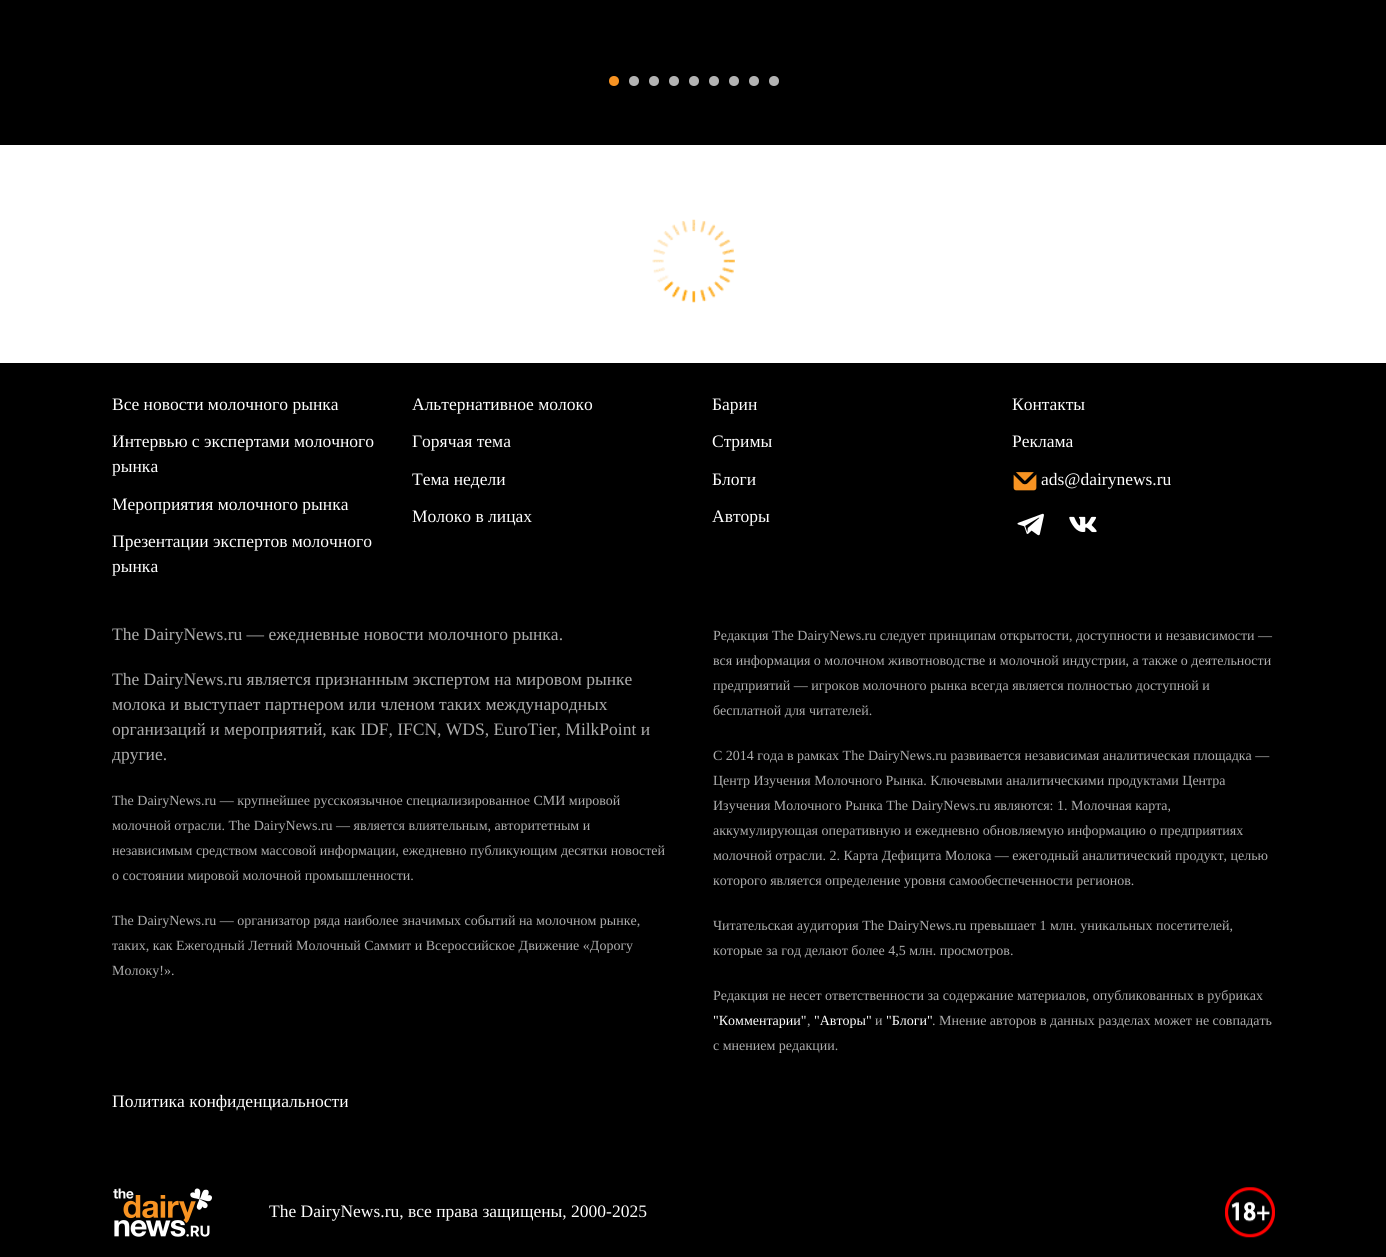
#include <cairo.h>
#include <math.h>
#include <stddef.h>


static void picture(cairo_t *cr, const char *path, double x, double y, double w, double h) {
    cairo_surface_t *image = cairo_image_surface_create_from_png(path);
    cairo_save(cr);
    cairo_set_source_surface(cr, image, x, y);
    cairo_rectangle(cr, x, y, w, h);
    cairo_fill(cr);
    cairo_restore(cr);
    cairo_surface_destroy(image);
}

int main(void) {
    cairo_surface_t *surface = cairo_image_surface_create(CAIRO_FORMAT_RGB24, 1386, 1257);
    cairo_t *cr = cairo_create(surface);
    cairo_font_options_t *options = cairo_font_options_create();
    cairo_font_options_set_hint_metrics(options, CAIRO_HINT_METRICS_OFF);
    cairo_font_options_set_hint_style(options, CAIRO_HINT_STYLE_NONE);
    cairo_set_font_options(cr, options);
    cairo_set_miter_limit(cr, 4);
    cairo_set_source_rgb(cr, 1, 1, 1);
    cairo_paint(cr);
    cairo_set_source_rgb(cr, 0, 0, 0);
    cairo_rectangle(cr, 0, 0, 1386, 145);
    cairo_fill(cr);
    cairo_set_source_rgb(cr, 0.969, 0.576, 0.133);
    cairo_arc(cr, 614, 81, 5, 0, 2 * M_PI);
    cairo_fill(cr);
    cairo_set_source_rgb(cr, 0.702, 0.702, 0.702);
    cairo_arc(cr, 634, 81, 5, 0, 2 * M_PI);
    cairo_fill(cr);
    cairo_arc(cr, 654, 81, 5, 0, 2 * M_PI);
    cairo_fill(cr);
    cairo_arc(cr, 674, 81, 5, 0, 2 * M_PI);
    cairo_fill(cr);
    cairo_arc(cr, 694, 81, 5, 0, 2 * M_PI);
    cairo_fill(cr);
    cairo_arc(cr, 714, 81, 5, 0, 2 * M_PI);
    cairo_fill(cr);
    cairo_arc(cr, 734, 81, 5, 0, 2 * M_PI);
    cairo_fill(cr);
    cairo_arc(cr, 754, 81, 5, 0, 2 * M_PI);
    cairo_fill(cr);
    cairo_arc(cr, 774, 81, 5, 0, 2 * M_PI);
    cairo_fill(cr);
    picture(cr, "img1.png", 652, 219, 83, 84);
    cairo_set_source_rgb(cr, 0, 0, 0);
    cairo_rectangle(cr, 0, 363, 1386, 894);
    cairo_fill(cr);
    cairo_select_font_face(cr, "Liberation Serif", CAIRO_FONT_SLANT_NORMAL, CAIRO_FONT_WEIGHT_NORMAL);
    cairo_set_font_size(cr, 17.5);
    cairo_set_source_rgb(cr, 1, 1, 1);
    cairo_move_to(cr, 112, 410);
    cairo_show_text(cr, "Все новости молочного рынка");
    cairo_move_to(cr, 112, 447);
    cairo_show_text(cr, "Интервью с экспертами молочного");
    cairo_move_to(cr, 112, 472);
    cairo_show_text(cr, "рынка");
    cairo_move_to(cr, 112, 510);
    cairo_show_text(cr, "Мероприятия молочного рынка");
    cairo_move_to(cr, 112, 547);
    cairo_show_text(cr, "Презентации экспертов молочного");
    cairo_move_to(cr, 112, 572);
    cairo_show_text(cr, "рынка");
    cairo_move_to(cr, 412, 410);
    cairo_show_text(cr, "Альтернативное молоко");
    cairo_move_to(cr, 412, 447);
    cairo_show_text(cr, "Горячая тема");
    cairo_move_to(cr, 412, 485);
    cairo_show_text(cr, "Тема недели");
    cairo_move_to(cr, 412, 522);
    cairo_show_text(cr, "Молоко в лицах");
    cairo_move_to(cr, 712, 410);
    cairo_show_text(cr, "Барин");
    cairo_move_to(cr, 712, 447);
    cairo_show_text(cr, "Стримы");
    cairo_move_to(cr, 712, 485);
    cairo_show_text(cr, "Блоги");
    cairo_move_to(cr, 712, 522);
    cairo_show_text(cr, "Авторы");
    cairo_move_to(cr, 1012, 410);
    cairo_show_text(cr, "Контакты");
    cairo_move_to(cr, 1012, 447);
    cairo_show_text(cr, "Реклама");
    picture(cr, "img2.png", 1013, 472, 24, 19);
    cairo_move_to(cr, 1041, 485);
    cairo_show_text(cr, "ads@dairynews.ru");
    picture(cr, "img3.png", 1017, 513, 27, 23);
    picture(cr, "img4.png", 1069, 516, 28, 17);
    cairo_set_source_rgb(cr, 0.678, 0.678, 0.678);
    cairo_move_to(cr, 112, 640);
    cairo_show_text(cr, "The DairyNews.ru — ежедневные новости молочного рынка.");
    cairo_move_to(cr, 112, 685);
    cairo_show_text(cr, "The DairyNews.ru является признанным экспертом на мировом рынке");
    cairo_move_to(cr, 112, 710);
    cairo_show_text(cr, "молока и выступает партнером или членом таких международных");
    cairo_move_to(cr, 112, 735);
    cairo_show_text(cr, "организаций и мероприятий, как IDF, IFCN, WDS, EuroTier, MilkPoint и");
    cairo_move_to(cr, 112, 760);
    cairo_show_text(cr, "другие.");
    cairo_set_font_size(cr, 14);
    cairo_move_to(cr, 112, 805);
    cairo_show_text(cr, "The DairyNews.ru — крупнейшее русскоязычное специализированное СМИ мировой");
    cairo_move_to(cr, 112, 830);
    cairo_show_text(cr, "молочной отрасли. The DairyNews.ru — является влиятельным, авторитетным и");
    cairo_move_to(cr, 112, 855);
    cairo_show_text(cr, "независимым средством массовой информации, ежедневно публикующим десятки новостей");
    cairo_move_to(cr, 112, 880);
    cairo_show_text(cr, "о состоянии мировой молочной промышленности.");
    cairo_move_to(cr, 112, 925);
    cairo_show_text(cr, "The DairyNews.ru — организатор ряда наиболее значимых событий на молочном рынке,");
    cairo_move_to(cr, 112, 950);
    cairo_show_text(cr, "таких, как Ежегодный Летний Молочный Саммит и Всероссийское Движение «Дорогу");
    cairo_move_to(cr, 112, 975);
    cairo_show_text(cr, "Молоку!».");
    cairo_move_to(cr, 713, 640);
    cairo_show_text(cr, "Редакция The DairyNews.ru следует принципам открытости, доступности и независимости —");
    cairo_move_to(cr, 713, 665);
    cairo_show_text(cr, "вся информация о молочном животноводстве и молочной индустрии, а также о деятельности");
    cairo_move_to(cr, 713, 690);
    cairo_show_text(cr, "предприятий — игроков молочного рынка всегда является полностью доступной и");
    cairo_move_to(cr, 713, 715);
    cairo_show_text(cr, "бесплатной для читателей.");
    cairo_move_to(cr, 713, 760);
    cairo_show_text(cr, "С 2014 года в рамках The DairyNews.ru развивается независимая аналитическая площадка —");
    cairo_move_to(cr, 713, 785);
    cairo_show_text(cr, "Центр Изучения Молочного Рынка. Ключевыми аналитическими продуктами Центра");
    cairo_move_to(cr, 713, 810);
    cairo_show_text(cr, "Изучения Молочного Рынка The DairyNews.ru являются: 1. Молочная карта,");
    cairo_move_to(cr, 713, 835);
    cairo_show_text(cr, "аккумулирующая оперативную и ежедневно обновляемую информацию о предприятиях");
    cairo_move_to(cr, 713, 860);
    cairo_show_text(cr, "молочной отрасли. 2. Карта Дефицита Молока — ежегодный аналитический продукт, целью");
    cairo_move_to(cr, 713, 885);
    cairo_show_text(cr, "которого является определение уровня самообеспеченности регионов.");
    cairo_move_to(cr, 713, 930);
    cairo_show_text(cr, "Читательская аудитория The DairyNews.ru превышает 1 млн. уникальных посетителей,");
    cairo_move_to(cr, 713, 955);
    cairo_show_text(cr, "которые за год делают более 4,5 млн. просмотров.");
    cairo_move_to(cr, 713, 1000);
    cairo_show_text(cr, "Редакция не несет ответственности за содержание материалов, опубликованных в рубриках");
    cairo_set_source_rgb(cr, 1, 1, 1);
    cairo_move_to(cr, 713, 1025);
    cairo_show_text(cr, "\"Комментарии\"");
    cairo_move_to(cr, 814, 1025);
    cairo_show_text(cr, "\"Авторы\"");
    cairo_set_source_rgb(cr, 0.678, 0.678, 0.678);
    cairo_move_to(cr, 875, 1025);
    cairo_show_text(cr, "и");
    cairo_set_source_rgb(cr, 1, 1, 1);
    cairo_move_to(cr, 886, 1025);
    cairo_show_text(cr, "\"Блоги\"");
    cairo_set_source_rgb(cr, 0.678, 0.678, 0.678);
    cairo_move_to(cr, 932, 1025);
    cairo_show_text(cr, ". Мнение авторов в данных разделах может не совпадать");
    cairo_move_to(cr, 807, 1025);
    cairo_show_text(cr, ",");
    cairo_move_to(cr, 713, 1050);
    cairo_show_text(cr, "с мнением редакции.");
    cairo_set_font_size(cr, 17.5);
    cairo_set_source_rgb(cr, 1, 1, 1);
    cairo_move_to(cr, 112, 1107);
    cairo_show_text(cr, "Политика конфиденциальности");
    picture(cr, "img5.png", 113, 1188, 99, 49);
    cairo_move_to(cr, 269, 1217);
    cairo_show_text(cr, "The DairyNews.ru, все права защищены, 2000-2025");
    picture(cr, "img6.png", 1225, 1187, 50, 51);
    cairo_surface_write_to_png(surface, "page.png");
    cairo_font_options_destroy(options);
    cairo_destroy(cr);
    cairo_surface_destroy(surface);
    return 0;
}
